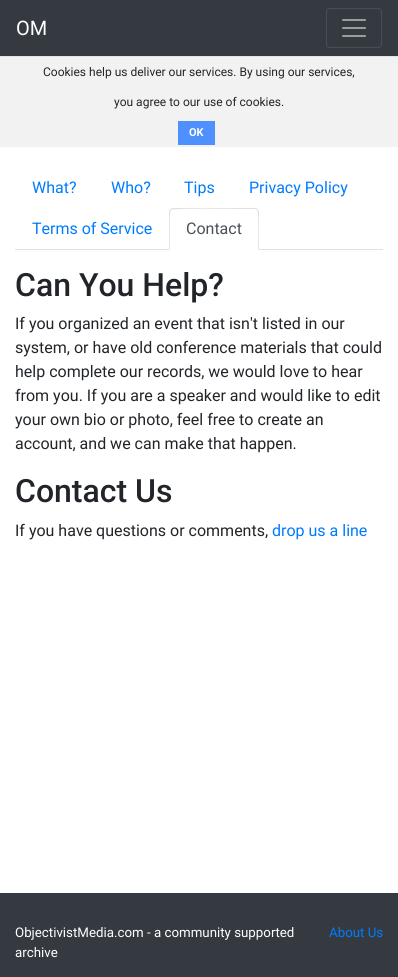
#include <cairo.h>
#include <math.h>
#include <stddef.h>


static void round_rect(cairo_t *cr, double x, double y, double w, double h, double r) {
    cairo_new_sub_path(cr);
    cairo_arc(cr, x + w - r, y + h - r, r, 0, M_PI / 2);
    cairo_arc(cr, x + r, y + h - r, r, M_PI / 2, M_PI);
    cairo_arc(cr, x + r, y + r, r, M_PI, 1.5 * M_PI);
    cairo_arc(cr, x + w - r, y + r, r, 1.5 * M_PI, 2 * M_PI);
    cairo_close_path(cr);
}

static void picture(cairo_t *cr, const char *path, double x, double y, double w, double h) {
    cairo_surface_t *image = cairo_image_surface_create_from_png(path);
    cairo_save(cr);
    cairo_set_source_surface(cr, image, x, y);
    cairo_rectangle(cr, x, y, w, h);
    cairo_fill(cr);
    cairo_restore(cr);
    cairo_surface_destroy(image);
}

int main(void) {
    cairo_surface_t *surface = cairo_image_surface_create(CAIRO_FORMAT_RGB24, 398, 977);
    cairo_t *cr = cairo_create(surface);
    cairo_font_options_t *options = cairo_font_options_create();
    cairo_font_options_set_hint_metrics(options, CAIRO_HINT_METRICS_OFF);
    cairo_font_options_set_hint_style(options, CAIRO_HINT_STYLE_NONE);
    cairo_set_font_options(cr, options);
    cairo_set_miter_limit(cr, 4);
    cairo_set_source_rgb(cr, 1, 1, 1);
    cairo_paint(cr);
    cairo_set_source_rgb(cr, 0.204, 0.227, 0.251);
    cairo_rectangle(cr, 0, 0, 398, 56);
    cairo_fill(cr);
    cairo_select_font_face(cr, "Roboto", CAIRO_FONT_SLANT_NORMAL, CAIRO_FONT_WEIGHT_NORMAL);
    cairo_set_font_size(cr, 20);
    cairo_set_source_rgb(cr, 1, 1, 1);
    cairo_move_to(cr, 16, 35);
    cairo_show_text(cr, "OM");
    round_rect(cr, 326.5, 8.5, 55, 39, 3.5);
    cairo_set_source_rgb(cr, 0.282, 0.306, 0.325);
    cairo_set_line_width(cr, 1);
    cairo_stroke(cr);
    picture(cr, "img1.png", 342, 19, 24, 18);
    cairo_set_source_rgb(cr, 0.949, 0.949, 0.949);
    cairo_rectangle(cr, 0, 57, 398, 90);
    cairo_fill(cr);
    cairo_set_source_rgb(cr, 0.894, 0.894, 0.894);
    cairo_rectangle(cr, 0, 56, 398, 1);
    cairo_fill(cr);
    cairo_set_font_size(cr, 12);
    cairo_set_source_rgb(cr, 0.129, 0.145, 0.161);
    cairo_move_to(cr, 43, 76);
    cairo_show_text(cr, "Cookies help us deliver our services. By using our services,");
    cairo_move_to(cr, 114, 106);
    cairo_show_text(cr, "you agree to our use of cookies.");
    cairo_set_source_rgb(cr, 0.302, 0.565, 0.996);
    cairo_rectangle(cr, 178, 121, 37, 24);
    cairo_fill(cr);
    cairo_select_font_face(cr, "Roboto", CAIRO_FONT_SLANT_NORMAL, CAIRO_FONT_WEIGHT_BOLD);
    cairo_set_font_size(cr, 11);
    cairo_set_source_rgb(cr, 1, 1, 1);
    cairo_move_to(cr, 189, 136);
    cairo_show_text(cr, "OK");
    cairo_set_source_rgb(cr, 0.871, 0.886, 0.902);
    cairo_rectangle(cr, 15, 249, 368, 1);
    cairo_fill(cr);
    cairo_select_font_face(cr, "Roboto", CAIRO_FONT_SLANT_NORMAL, CAIRO_FONT_WEIGHT_NORMAL);
    cairo_set_font_size(cr, 16);
    cairo_set_source_rgb(cr, 0, 0.482, 1);
    cairo_move_to(cr, 32, 193);
    cairo_show_text(cr, "What?");
    cairo_move_to(cr, 111, 193);
    cairo_show_text(cr, "Who?");
    cairo_move_to(cr, 184, 193);
    cairo_show_text(cr, "Tips");
    cairo_move_to(cr, 249, 193);
    cairo_show_text(cr, "Privacy Policy");
    cairo_move_to(cr, 32, 234);
    cairo_show_text(cr, "Terms of Service");
    cairo_set_source_rgb(cr, 1, 1, 1);
    cairo_new_path(cr);
    cairo_move_to(cr, 173, 208);
    cairo_line_to(cr, 255, 208);
    cairo_curve_to(cr, 257, 208, 259, 210, 259, 212);
    cairo_line_to(cr, 259, 250);
    cairo_line_to(cr, 169, 250);
    cairo_line_to(cr, 169, 212);
    cairo_curve_to(cr, 169, 210, 171, 208, 173, 208);
    cairo_close_path(cr);
    cairo_fill(cr);
    cairo_set_source_rgb(cr, 0.871, 0.886, 0.902);
    cairo_new_path(cr);
    cairo_move_to(cr, 173, 208);
    cairo_line_to(cr, 170, 209);
    cairo_line_to(cr, 171, 210);
    cairo_curve_to(cr, 173, 208, 234, 209, 241, 209);
    cairo_line_to(cr, 255, 209);
    cairo_line_to(cr, 257, 210);
    cairo_line_to(cr, 258, 209);
    cairo_line_to(cr, 255, 208);
    cairo_close_path(cr);
    cairo_fill(cr);
    cairo_new_path(cr);
    cairo_move_to(cr, 259, 250);
    cairo_line_to(cr, 259, 212);
    cairo_curve_to(cr, 259, 211, 258, 210, 258, 209);
    cairo_line_to(cr, 257, 210);
    cairo_curve_to(cr, 259, 212, 258, 244, 258, 249);
    cairo_close_path(cr);
    cairo_fill(cr);
    cairo_set_source_rgb(cr, 1, 1, 1);
    cairo_new_path(cr);
    cairo_move_to(cr, 259, 250);
    cairo_line_to(cr, 258, 249);
    cairo_line_to(cr, 170, 249);
    cairo_line_to(cr, 169, 250);
    cairo_close_path(cr);
    cairo_fill(cr);
    cairo_set_source_rgb(cr, 0.871, 0.886, 0.902);
    cairo_new_path(cr);
    cairo_move_to(cr, 169, 250);
    cairo_line_to(cr, 170, 249);
    cairo_curve_to(cr, 170, 244, 169, 212, 171, 210);
    cairo_line_to(cr, 170, 209);
    cairo_line_to(cr, 169, 212);
    cairo_close_path(cr);
    cairo_fill(cr);
    cairo_set_source_rgb(cr, 0.286, 0.314, 0.341);
    cairo_move_to(cr, 186, 234);
    cairo_show_text(cr, "Contact");
    cairo_select_font_face(cr, "Roboto Medium", CAIRO_FONT_SLANT_NORMAL, CAIRO_FONT_WEIGHT_NORMAL);
    cairo_set_font_size(cr, 32);
    cairo_set_source_rgb(cr, 0.129, 0.145, 0.161);
    cairo_move_to(cr, 15, 296);
    cairo_show_text(cr, "Can You Help?");
    cairo_select_font_face(cr, "Roboto", CAIRO_FONT_SLANT_NORMAL, CAIRO_FONT_WEIGHT_NORMAL);
    cairo_set_font_size(cr, 16);
    cairo_move_to(cr, 15, 329);
    cairo_show_text(cr, "If you organized an event that isn't listed in our");
    cairo_move_to(cr, 15, 353);
    cairo_show_text(cr, "system, or have old conference materials that could");
    cairo_move_to(cr, 15, 377);
    cairo_show_text(cr, "help complete our records, we would love to hear");
    cairo_move_to(cr, 15, 401);
    cairo_show_text(cr, "from you. If you are a speaker and would like to edit");
    cairo_move_to(cr, 15, 425);
    cairo_show_text(cr, "your own bio or photo, feel free to create an");
    cairo_move_to(cr, 15, 449);
    cairo_show_text(cr, "account, and we can make that happen.");
    cairo_select_font_face(cr, "Roboto Medium", CAIRO_FONT_SLANT_NORMAL, CAIRO_FONT_WEIGHT_NORMAL);
    cairo_set_font_size(cr, 32);
    cairo_move_to(cr, 15, 502);
    cairo_show_text(cr, "Contact Us");
    cairo_select_font_face(cr, "Roboto", CAIRO_FONT_SLANT_NORMAL, CAIRO_FONT_WEIGHT_NORMAL);
    cairo_set_font_size(cr, 16);
    cairo_move_to(cr, 15, 536);
    cairo_show_text(cr, "If you have questions or comments,");
    cairo_set_source_rgb(cr, 0, 0.482, 1);
    cairo_move_to(cr, 272, 536);
    cairo_show_text(cr, "drop us a line");
    cairo_set_source_rgb(cr, 0.204, 0.227, 0.251);
    cairo_rectangle(cr, 0, 893, 398, 84);
    cairo_fill(cr);
    cairo_set_font_size(cr, 13.3);
    cairo_set_source_rgb(cr, 1, 1, 1);
    cairo_move_to(cr, 15, 937);
    cairo_show_text(cr, "ObjectivistMedia.com - a community supported");
    cairo_move_to(cr, 15, 957);
    cairo_show_text(cr, "archive");
    cairo_set_source_rgb(cr, 0, 0.482, 1);
    cairo_move_to(cr, 329, 937);
    cairo_show_text(cr, "About Us");
    cairo_surface_write_to_png(surface, "page.png");
    cairo_font_options_destroy(options);
    cairo_destroy(cr);
    cairo_surface_destroy(surface);
    return 0;
}
